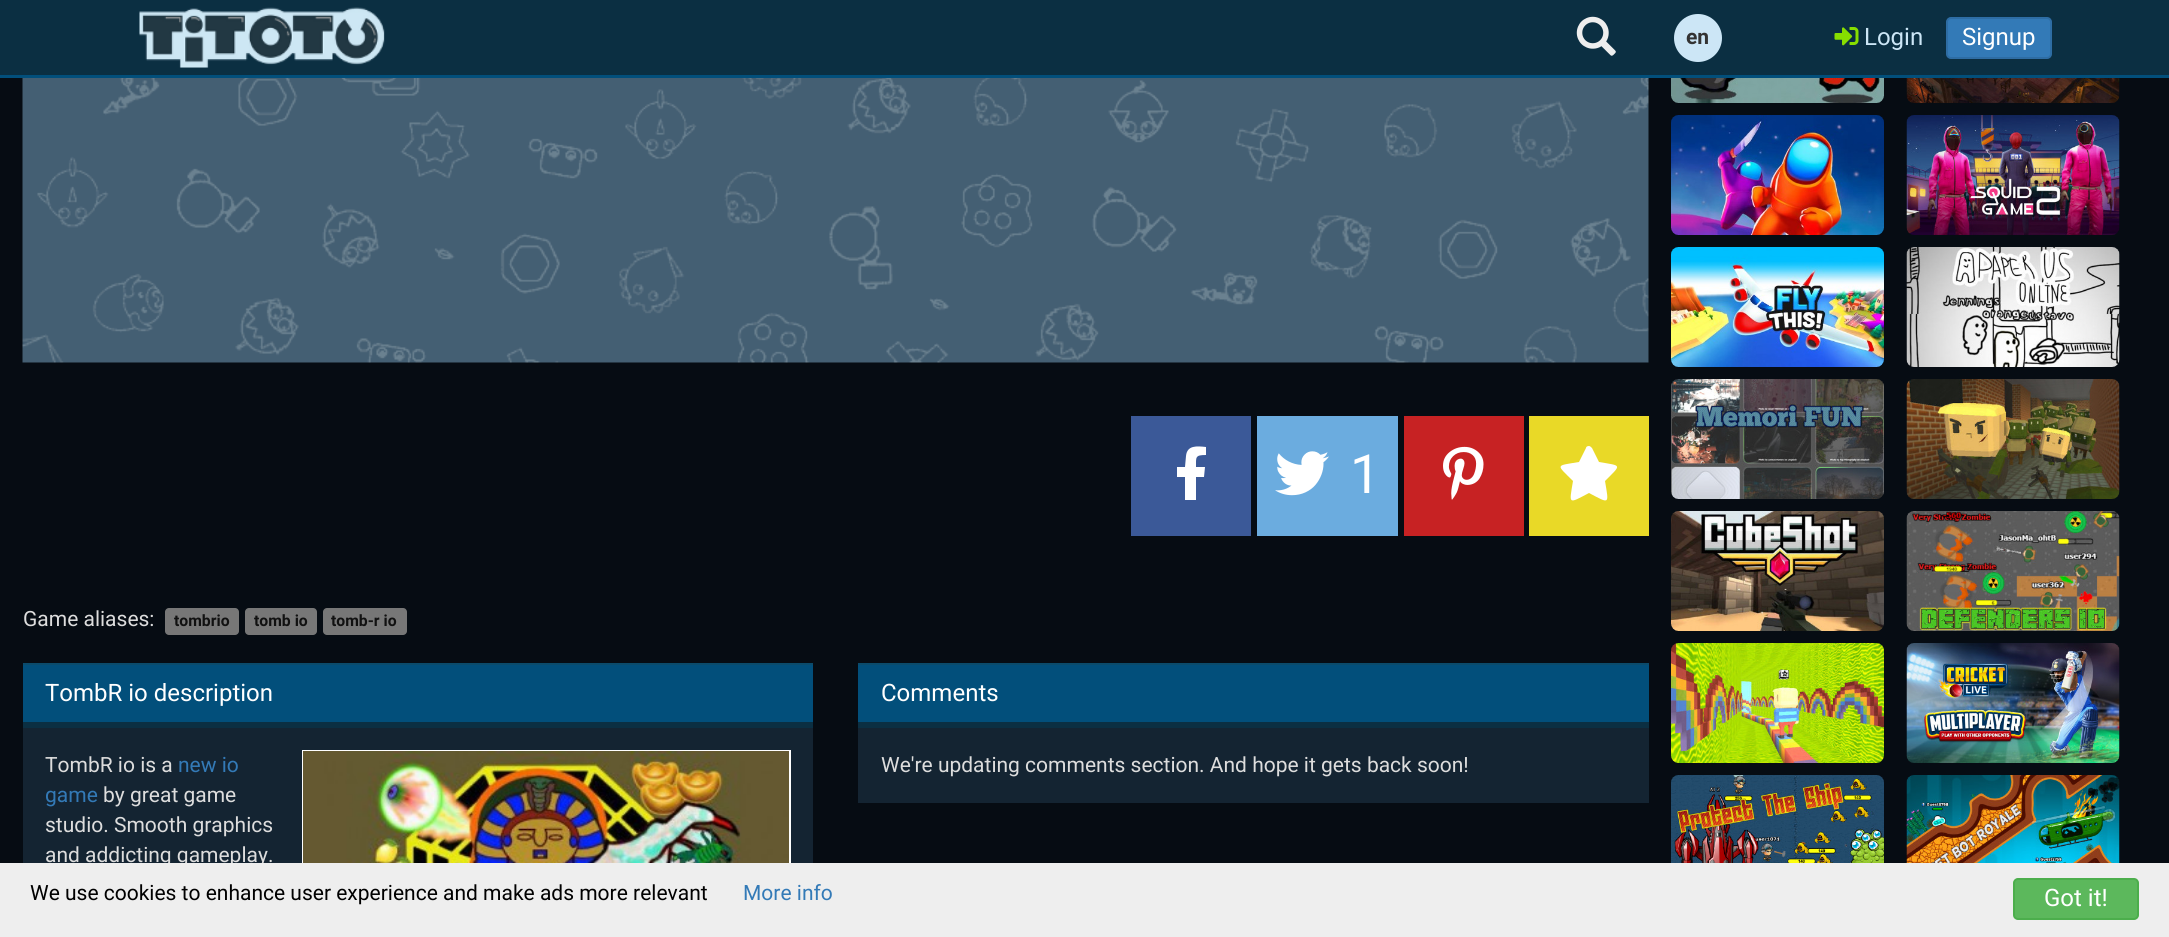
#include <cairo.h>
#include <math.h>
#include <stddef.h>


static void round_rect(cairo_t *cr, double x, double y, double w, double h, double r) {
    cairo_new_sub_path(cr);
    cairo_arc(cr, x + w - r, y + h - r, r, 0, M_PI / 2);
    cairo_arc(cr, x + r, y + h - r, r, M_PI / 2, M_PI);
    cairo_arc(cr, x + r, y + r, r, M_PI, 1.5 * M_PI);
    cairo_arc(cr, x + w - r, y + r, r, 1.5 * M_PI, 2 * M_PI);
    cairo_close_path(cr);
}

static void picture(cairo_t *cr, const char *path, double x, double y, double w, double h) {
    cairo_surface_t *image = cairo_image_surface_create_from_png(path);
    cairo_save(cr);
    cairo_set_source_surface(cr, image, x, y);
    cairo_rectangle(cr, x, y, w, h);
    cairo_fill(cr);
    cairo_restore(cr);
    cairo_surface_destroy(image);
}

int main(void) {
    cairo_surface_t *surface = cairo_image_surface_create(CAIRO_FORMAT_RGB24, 2169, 937);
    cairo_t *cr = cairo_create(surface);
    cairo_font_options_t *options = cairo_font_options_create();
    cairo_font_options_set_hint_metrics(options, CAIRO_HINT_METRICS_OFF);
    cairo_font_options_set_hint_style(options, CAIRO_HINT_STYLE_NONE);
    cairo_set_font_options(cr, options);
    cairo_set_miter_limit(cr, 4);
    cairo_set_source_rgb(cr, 0.027, 0.047, 0.078);
    cairo_paint(cr);
    cairo_set_source_rgb(cr, 0.043, 0.184, 0.259);
    cairo_rectangle(cr, 0, 0, 2169, 75);
    cairo_fill(cr);
    cairo_set_source_rgb(cr, 0.008, 0.31, 0.482);
    cairo_rectangle(cr, 0, 75, 2169, 3);
    cairo_fill(cr);
    picture(cr, "img1.png", 139, 7, 246, 61);
    picture(cr, "img2.png", 1576, 16, 40, 40);
    cairo_set_source_rgb(cr, 0.8, 0.902, 0.961);
    cairo_arc(cr, 1698, 38, 24, 0, 2 * M_PI);
    cairo_fill(cr);
    cairo_select_font_face(cr, "Roboto", CAIRO_FONT_SLANT_NORMAL, CAIRO_FONT_WEIGHT_BOLD);
    cairo_set_font_size(cr, 21);
    cairo_set_source_rgb(cr, 0.2, 0.2, 0.2);
    cairo_move_to(cr, 1686, 44);
    cairo_show_text(cr, "en");
    picture(cr, "img3.png", 1834, 27, 25, 19);
    cairo_select_font_face(cr, "Roboto", CAIRO_FONT_SLANT_NORMAL, CAIRO_FONT_WEIGHT_NORMAL);
    cairo_set_font_size(cr, 24);
    cairo_set_source_rgb(cr, 0.8, 0.902, 0.961);
    cairo_move_to(cr, 1864, 45);
    cairo_show_text(cr, "Login");
    cairo_set_source_rgb(cr, 0.2, 0.478, 0.718);
    round_rect(cr, 1947, 18, 104, 40, 4);
    cairo_fill_preserve(cr);
    cairo_set_source_rgb(cr, 0.18, 0.427, 0.643);
    cairo_stroke(cr);
    cairo_set_source_rgb(cr, 1, 1, 1);
    cairo_move_to(cr, 1962, 45);
    cairo_show_text(cr, "Signup");
    picture(cr, "img4.png", 22, 78, 1627, 285);
    cairo_set_source_rgb(cr, 0.231, 0.349, 0.596);
    cairo_rectangle(cr, 1131, 416, 120, 120);
    cairo_fill(cr);
    cairo_set_source_rgb(cr, 1, 1, 1);
    cairo_new_path(cr);
    cairo_move_to(cr, 1204, 477);
    cairo_line_to(cr, 1196, 477);
    cairo_line_to(cr, 1196, 500);
    cairo_line_to(cr, 1185, 500);
    cairo_line_to(cr, 1185, 477);
    cairo_line_to(cr, 1177, 477);
    cairo_line_to(cr, 1177, 467);
    cairo_line_to(cr, 1185, 467);
    cairo_line_to(cr, 1186, 456);
    cairo_curve_to(cr, 1187, 445, 1197, 446, 1206, 447);
    cairo_line_to(cr, 1206, 455);
    cairo_curve_to(cr, 1195, 455, 1196, 457, 1196, 467);
    cairo_line_to(cr, 1205, 467);
    cairo_close_path(cr);
    cairo_fill(cr);
    cairo_set_source_rgb(cr, 0.42, 0.675, 0.875);
    cairo_rectangle(cr, 1257, 416, 141, 120);
    cairo_fill(cr);
    picture(cr, "img5.png", 1275, 451, 54, 45);
    cairo_set_font_size(cr, 54);
    cairo_set_source_rgb(cr, 1, 1, 1);
    cairo_move_to(cr, 1350, 493);
    cairo_show_text(cr, "1");
    cairo_set_source_rgb(cr, 0.78, 0.133, 0.137);
    cairo_rectangle(cr, 1404, 416, 120, 120);
    cairo_fill(cr);
    picture(cr, "img6.png", 1443, 446, 41, 54);
    cairo_set_source_rgb(cr, 0.914, 0.851, 0.153);
    cairo_rectangle(cr, 1529, 416, 120, 120);
    cairo_fill(cr);
    cairo_set_source_rgb(cr, 1, 1, 1);
    cairo_new_path(cr);
    cairo_move_to(cr, 1586, 448);
    cairo_curve_to(cr, 1586, 447, 1587, 446, 1589, 446);
    cairo_curve_to(cr, 1590, 446, 1591, 447, 1592, 448);
    cairo_line_to(cr, 1599, 462);
    cairo_curve_to(cr, 1622, 466, 1622, 464, 1605, 481);
    cairo_curve_to(cr, 1609, 505, 1610, 504, 1589, 493);
    cairo_curve_to(cr, 1568, 504, 1569, 505, 1573, 481);
    cairo_curve_to(cr, 1556, 464, 1555, 466, 1579, 462);
    cairo_close_path(cr);
    cairo_fill(cr);
    cairo_set_font_size(cr, 21);
    cairo_set_source_rgb(cr, 0.867, 0.867, 0.867);
    cairo_move_to(cr, 23, 626);
    cairo_show_text(cr, "Game aliases:");
    cairo_set_source_rgb(cr, 0.467, 0.467, 0.467);
    round_rect(cr, 165, 608, 74, 27, 4);
    cairo_fill(cr);
    cairo_select_font_face(cr, "Roboto", CAIRO_FONT_SLANT_NORMAL, CAIRO_FONT_WEIGHT_BOLD);
    cairo_set_font_size(cr, 15.75);
    cairo_set_source_rgb(cr, 0.067, 0.067, 0.067);
    cairo_move_to(cr, 174, 626);
    cairo_show_text(cr, "tombrio");
    cairo_set_source_rgb(cr, 0.467, 0.467, 0.467);
    round_rect(cr, 245, 608, 72, 27, 4);
    cairo_fill(cr);
    cairo_set_source_rgb(cr, 0.067, 0.067, 0.067);
    cairo_move_to(cr, 254, 626);
    cairo_show_text(cr, "tomb io");
    cairo_set_source_rgb(cr, 0.467, 0.467, 0.467);
    round_rect(cr, 323, 608, 84, 27, 4);
    cairo_fill(cr);
    cairo_set_source_rgb(cr, 0.067, 0.067, 0.067);
    cairo_move_to(cr, 331, 626);
    cairo_show_text(cr, "tomb-r io");
    cairo_set_source_rgb(cr, 0.082, 0.141, 0.196);
    cairo_rectangle(cr, 23, 728, 790, 135);
    cairo_fill(cr);
    cairo_set_source_rgb(cr, 0.008, 0.31, 0.482);
    cairo_rectangle(cr, 23, 665, 790, 57);
    cairo_fill(cr);
    cairo_set_source_rgb(cr, 0.043, 0.294, 0.42);
    cairo_rectangle(cr, 23, 663, 790, 2);
    cairo_fill(cr);
    cairo_set_source_rgb(cr, 0.043, 0.184, 0.259);
    cairo_rectangle(cr, 23, 722, 790, 6);
    cairo_fill(cr);
    cairo_select_font_face(cr, "Roboto", CAIRO_FONT_SLANT_NORMAL, CAIRO_FONT_WEIGHT_NORMAL);
    cairo_set_font_size(cr, 24);
    cairo_set_source_rgb(cr, 1, 1, 1);
    cairo_move_to(cr, 45, 701);
    cairo_show_text(cr, "TombR io description");
    cairo_set_font_size(cr, 21);
    cairo_set_source_rgb(cr, 0.867, 0.867, 0.867);
    cairo_move_to(cr, 45, 772);
    cairo_show_text(cr, "TombR io is a");
    cairo_set_source_rgb(cr, 0.2, 0.478, 0.718);
    cairo_move_to(cr, 178, 772);
    cairo_show_text(cr, "new io");
    cairo_move_to(cr, 45, 802);
    cairo_show_text(cr, "game");
    cairo_set_source_rgb(cr, 0.867, 0.867, 0.867);
    cairo_move_to(cr, 103, 802);
    cairo_show_text(cr, "by great game");
    cairo_move_to(cr, 45, 832);
    cairo_show_text(cr, "studio. Smooth graphics");
    cairo_move_to(cr, 45, 862);
    cairo_show_text(cr, "and addicting gameplay.");
    cairo_rectangle(cr, 303, 751, 487, 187);
    cairo_set_source_rgb(cr, 1, 1, 1);
    cairo_stroke(cr);
    picture(cr, "img7.png", 303, 751, 486, 112);
    cairo_set_source_rgb(cr, 0.082, 0.141, 0.196);
    cairo_rectangle(cr, 858, 728, 791, 75);
    cairo_fill(cr);
    cairo_set_source_rgb(cr, 0.008, 0.31, 0.482);
    cairo_rectangle(cr, 858, 665, 791, 57);
    cairo_fill(cr);
    cairo_set_source_rgb(cr, 0.043, 0.294, 0.42);
    cairo_rectangle(cr, 858, 663, 791, 2);
    cairo_fill(cr);
    cairo_set_source_rgb(cr, 0.043, 0.184, 0.259);
    cairo_rectangle(cr, 858, 722, 791, 6);
    cairo_fill(cr);
    cairo_set_font_size(cr, 24);
    cairo_set_source_rgb(cr, 1, 1, 1);
    cairo_move_to(cr, 881, 701);
    cairo_show_text(cr, "Comments");
    cairo_set_font_size(cr, 21);
    cairo_set_source_rgb(cr, 0.867, 0.867, 0.867);
    cairo_move_to(cr, 881, 772);
    cairo_show_text(cr, "We're updating comments section. And hope it gets back soon!");
    picture(cr, "img8.png", 1671, 78, 213, 25);
    picture(cr, "img9.png", 1906, 78, 214, 25);
    picture(cr, "img10.png", 1671, 115, 213, 120);
    picture(cr, "img11.png", 1906, 115, 214, 120);
    picture(cr, "img12.png", 1671, 247, 213, 120);
    picture(cr, "img13.png", 1906, 247, 214, 120);
    picture(cr, "img14.png", 1671, 379, 213, 120);
    picture(cr, "img15.png", 1906, 379, 214, 120);
    picture(cr, "img16.png", 1671, 511, 213, 120);
    picture(cr, "img17.png", 1906, 511, 214, 120);
    picture(cr, "img18.png", 1671, 643, 213, 120);
    picture(cr, "img19.png", 1906, 643, 214, 120);
    picture(cr, "img20.png", 1671, 775, 213, 88);
    picture(cr, "img21.png", 1906, 775, 214, 88);
    cairo_set_source_rgb(cr, 0.933, 0.933, 0.933);
    cairo_rectangle(cr, 0, 863, 2169, 74);
    cairo_fill(cr);
    cairo_set_source_rgb(cr, 0, 0, 0);
    cairo_move_to(cr, 30, 900);
    cairo_show_text(cr, "We use cookies to enhance user experience and make ads more relevant");
    cairo_set_source_rgb(cr, 0.2, 0.478, 0.718);
    cairo_move_to(cr, 743, 900);
    cairo_show_text(cr, "More info");
    cairo_set_source_rgb(cr, 0.361, 0.722, 0.361);
    round_rect(cr, 2014, 879, 124, 40, 4);
    cairo_fill_preserve(cr);
    cairo_set_source_rgb(cr, 0.298, 0.682, 0.298);
    cairo_stroke(cr);
    cairo_set_font_size(cr, 24);
    cairo_set_source_rgb(cr, 1, 1, 1);
    cairo_move_to(cr, 2044, 906);
    cairo_show_text(cr, "Got it!");
    cairo_surface_write_to_png(surface, "page.png");
    cairo_font_options_destroy(options);
    cairo_destroy(cr);
    cairo_surface_destroy(surface);
    return 0;
}
